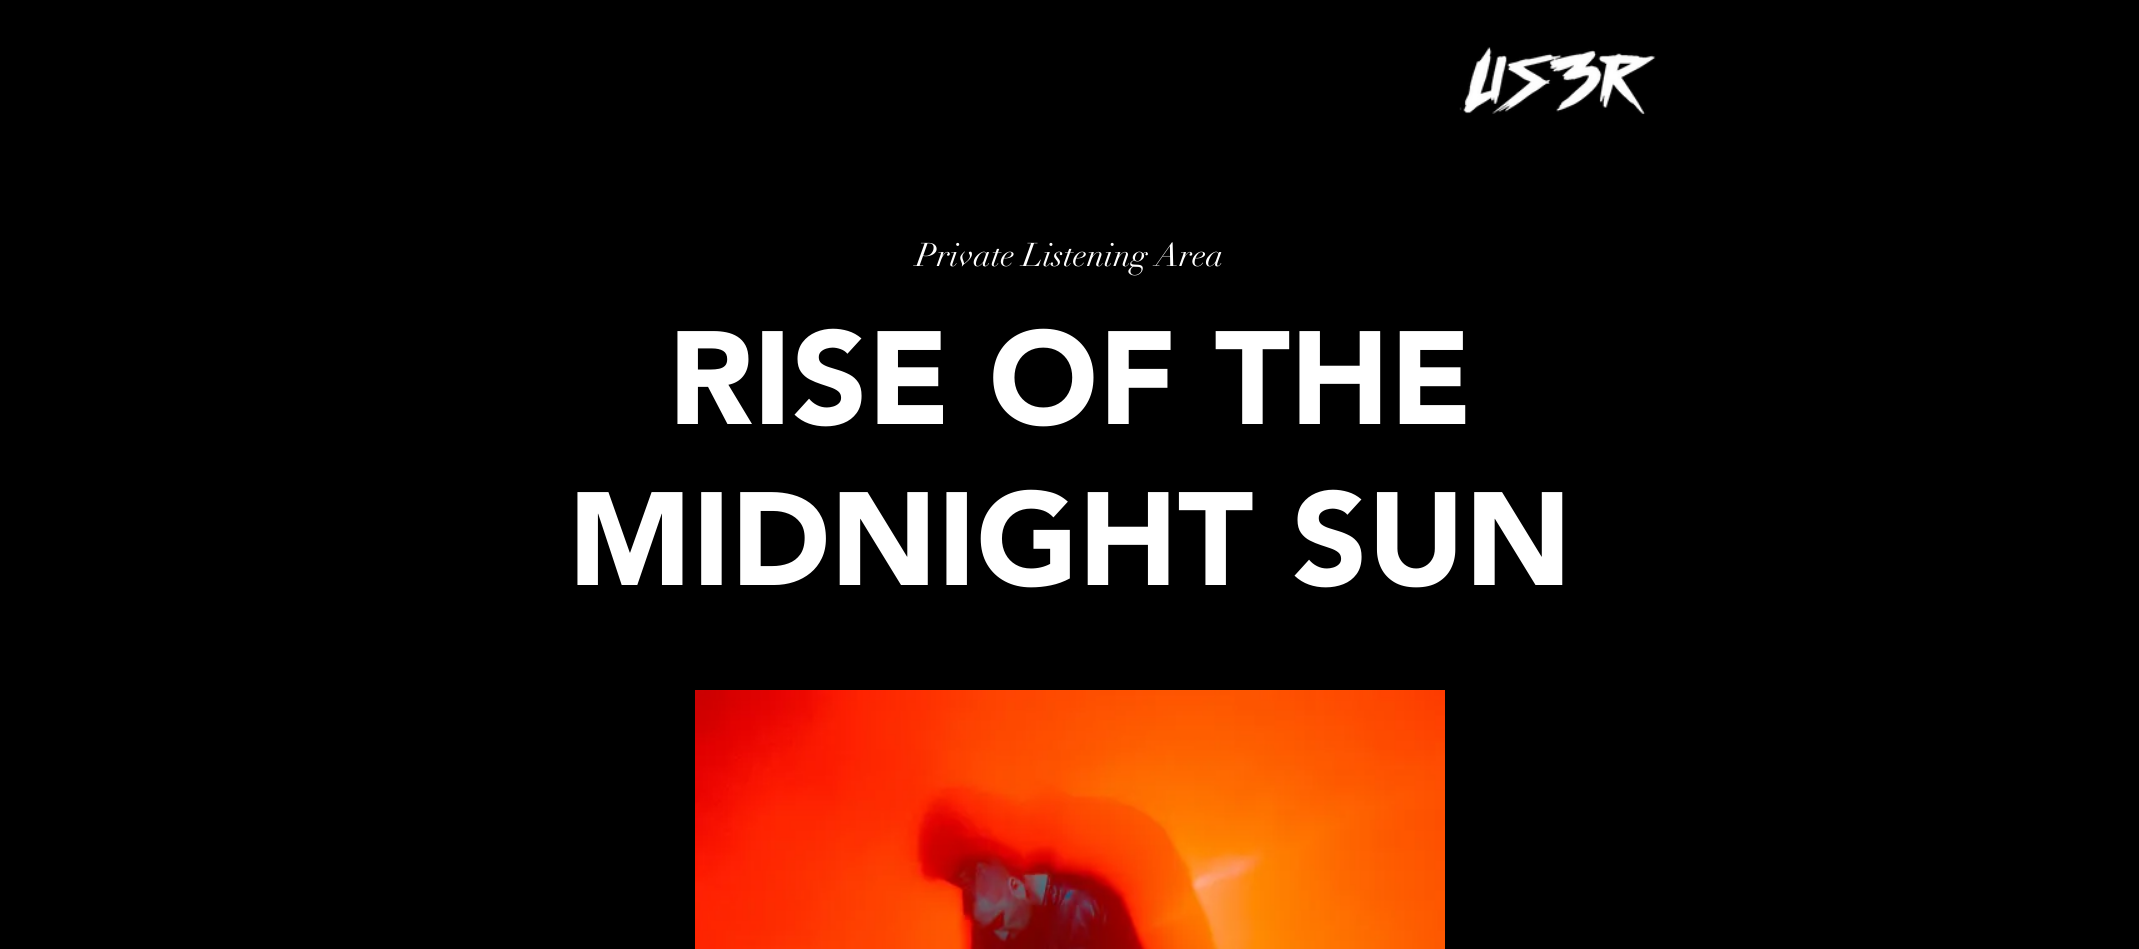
#include <cairo.h>
#include <math.h>
#include <stddef.h>


static void picture(cairo_t *cr, const char *path, double x, double y, double w, double h) {
    cairo_surface_t *image = cairo_image_surface_create_from_png(path);
    cairo_save(cr);
    cairo_set_source_surface(cr, image, x, y);
    cairo_rectangle(cr, x, y, w, h);
    cairo_fill(cr);
    cairo_restore(cr);
    cairo_surface_destroy(image);
}

int main(void) {
    cairo_surface_t *surface = cairo_image_surface_create(CAIRO_FORMAT_RGB24, 2139, 949);
    cairo_t *cr = cairo_create(surface);
    cairo_font_options_t *options = cairo_font_options_create();
    cairo_font_options_set_hint_metrics(options, CAIRO_HINT_METRICS_OFF);
    cairo_font_options_set_hint_style(options, CAIRO_HINT_STYLE_NONE);
    cairo_set_font_options(cr, options);
    cairo_set_miter_limit(cr, 4);
    cairo_set_source_rgb(cr, 0, 0, 0);
    cairo_paint(cr);
    picture(cr, "img1.png", 1459, 47, 197, 68);
    cairo_select_font_face(cr, "didot", CAIRO_FONT_SLANT_NORMAL, CAIRO_FONT_WEIGHT_NORMAL);
    cairo_set_font_size(cr, 32.5);
    cairo_set_source_rgb(cr, 1, 1, 1);
    cairo_move_to(cr, 916, 266);
    cairo_show_text(cr, "Private Listening Area");
    cairo_select_font_face(cr, "Avenir Black", CAIRO_FONT_SLANT_NORMAL, CAIRO_FONT_WEIGHT_NORMAL);
    cairo_set_font_size(cr, 131.25);
    cairo_move_to(cr, 668, 424);
    cairo_show_text(cr, "RISE OF THE");
    cairo_move_to(cr, 568, 585);
    cairo_show_text(cr, "MIDNIGHT SUN");
    picture(cr, "img2.png", 695, 690, 750, 259);
    cairo_surface_write_to_png(surface, "page.png");
    cairo_font_options_destroy(options);
    cairo_destroy(cr);
    cairo_surface_destroy(surface);
    return 0;
}
